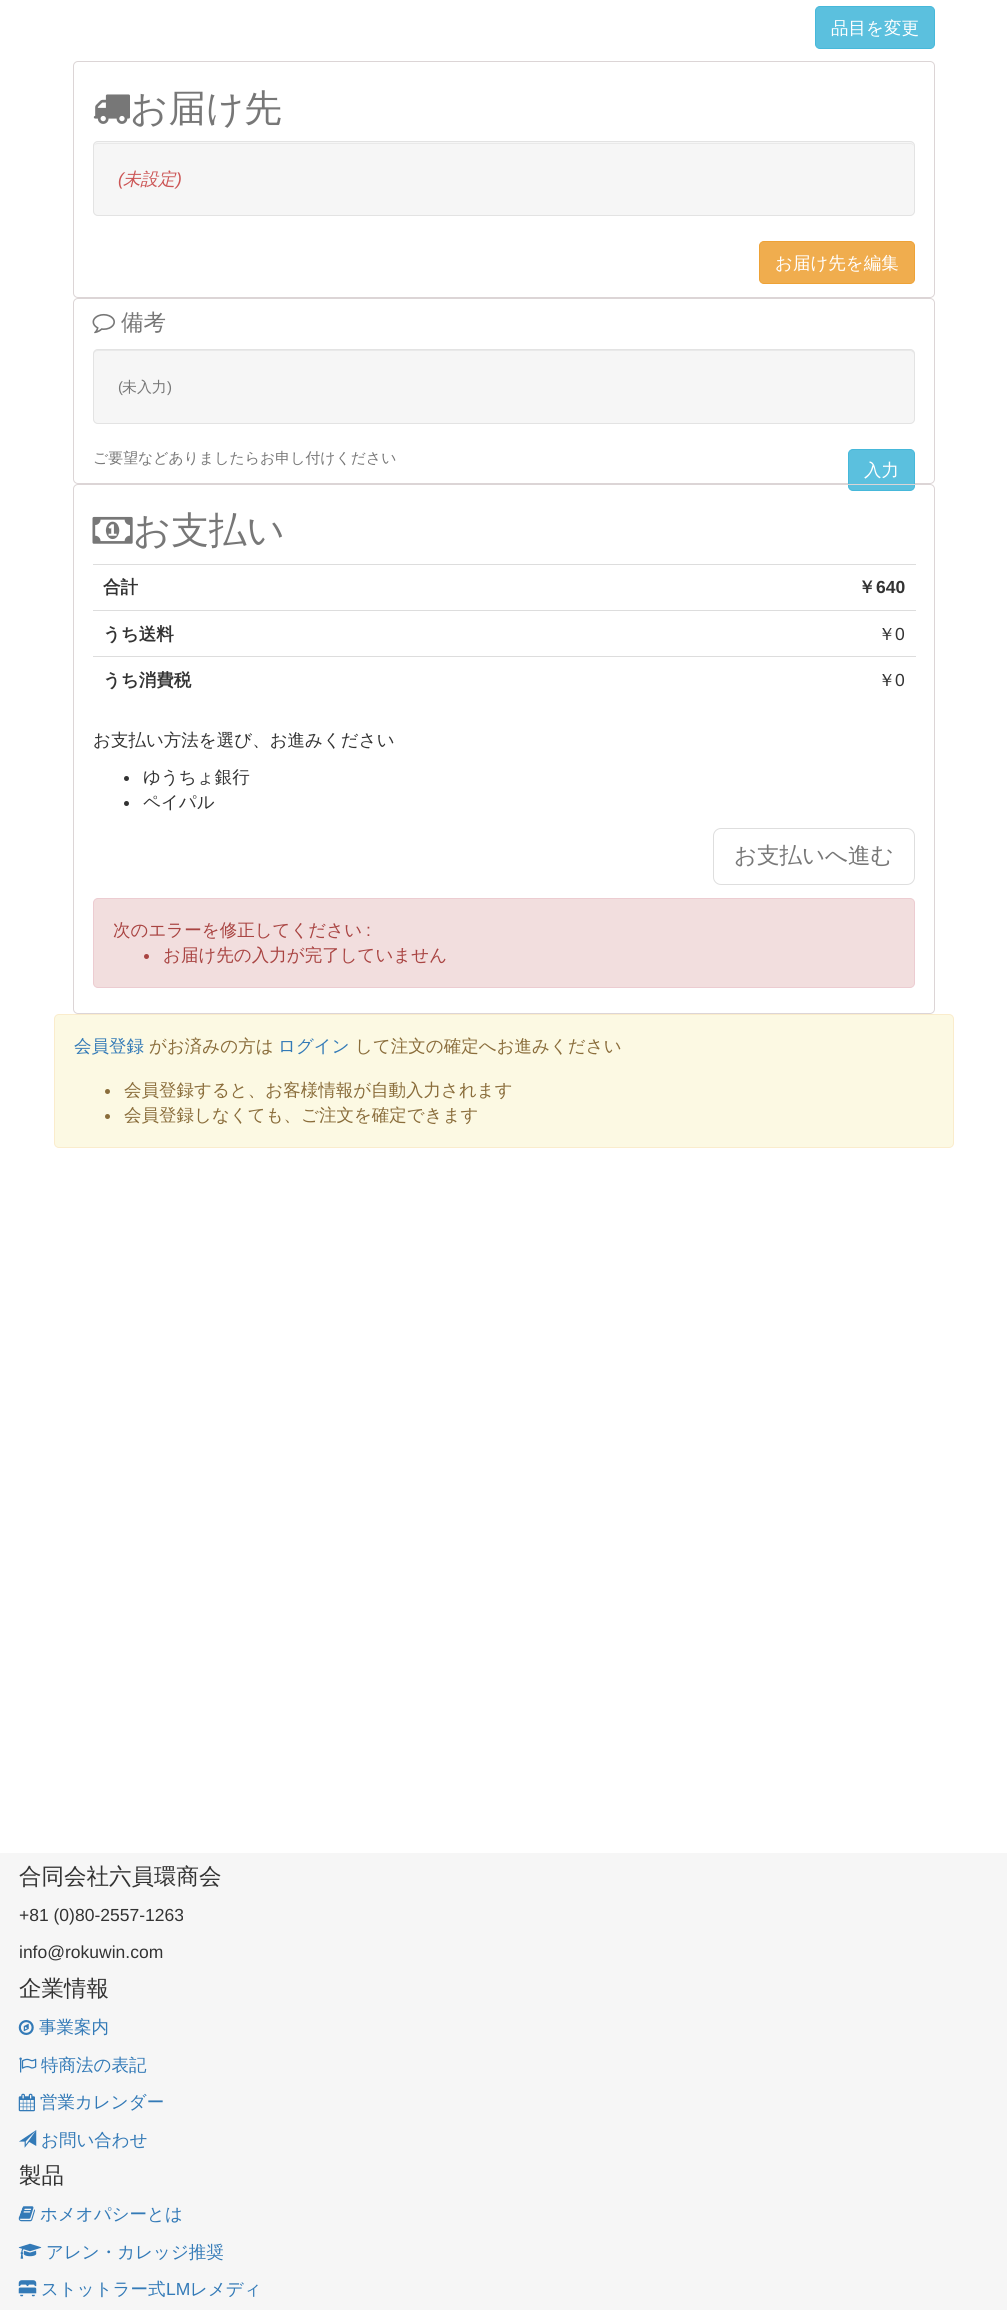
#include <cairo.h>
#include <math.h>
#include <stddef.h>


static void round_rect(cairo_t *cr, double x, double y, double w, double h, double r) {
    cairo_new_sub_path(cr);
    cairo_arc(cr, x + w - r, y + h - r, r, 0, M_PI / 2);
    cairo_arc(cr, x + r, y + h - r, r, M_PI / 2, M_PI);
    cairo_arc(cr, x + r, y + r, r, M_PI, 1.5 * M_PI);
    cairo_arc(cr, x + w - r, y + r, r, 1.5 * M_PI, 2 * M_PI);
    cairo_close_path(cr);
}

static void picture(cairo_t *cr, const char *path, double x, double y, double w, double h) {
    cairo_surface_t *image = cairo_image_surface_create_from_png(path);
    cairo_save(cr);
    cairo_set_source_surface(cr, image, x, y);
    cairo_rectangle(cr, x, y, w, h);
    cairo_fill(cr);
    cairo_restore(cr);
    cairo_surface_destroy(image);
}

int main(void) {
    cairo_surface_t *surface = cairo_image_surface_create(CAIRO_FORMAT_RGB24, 1007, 2310);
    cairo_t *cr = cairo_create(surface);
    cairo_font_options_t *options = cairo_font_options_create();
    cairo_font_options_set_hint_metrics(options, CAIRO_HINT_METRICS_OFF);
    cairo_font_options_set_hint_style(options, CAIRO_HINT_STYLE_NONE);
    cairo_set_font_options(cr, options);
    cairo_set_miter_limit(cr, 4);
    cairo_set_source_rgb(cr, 1, 1, 1);
    cairo_paint(cr);
    cairo_set_source_rgb(cr, 0.357, 0.753, 0.871);
    round_rect(cr, 815.5, 6.5, 119, 42, 4.5);
    cairo_fill_preserve(cr);
    cairo_set_source_rgb(cr, 0.275, 0.722, 0.855);
    cairo_set_line_width(cr, 1);
    cairo_stroke(cr);
    cairo_select_font_face(cr, "WenQuanYi Zen Hei Medium", CAIRO_FONT_SLANT_NORMAL, CAIRO_FONT_WEIGHT_NORMAL);
    cairo_set_font_size(cr, 17.5);
    cairo_set_source_rgb(cr, 1, 1, 1);
    cairo_move_to(cr, 831, 34);
    cairo_show_text(cr, "品目を変更");
    round_rect(cr, 73.5, 61.5, 861, 236, 4.5);
    cairo_set_source_rgb(cr, 0.863, 0.835, 0.839);
    cairo_stroke(cr);
    picture(cr, "img1.png", 93, 94, 37, 30);
    cairo_set_font_size(cr, 37.5);
    cairo_set_source_rgb(cr, 0.467, 0.467, 0.467);
    cairo_move_to(cr, 130, 121);
    cairo_show_text(cr, "お届け先");
    cairo_set_source_rgb(cr, 0.961, 0.961, 0.961);
    round_rect(cr, 93, 141, 822, 75, 5);
    cairo_fill(cr);
    cairo_set_source_rgb(cr, 0.914, 0.914, 0.914);
    cairo_new_path(cr);
    cairo_move_to(cr, 98, 144);
    cairo_line_to(cr, 910, 144);
    cairo_curve_to(cr, 912, 144, 914, 145, 914, 148);
    cairo_curve_to(cr, 914, 145, 913, 143, 910, 143);
    cairo_line_to(cr, 98, 143);
    cairo_curve_to(cr, 95, 143, 94, 145, 94, 148);
    cairo_curve_to(cr, 94, 145, 95, 144, 98, 144);
    cairo_close_path(cr);
    cairo_fill(cr);
    round_rect(cr, 93.5, 141.5, 821, 74, 4.5);
    cairo_set_source_rgb(cr, 0.89, 0.89, 0.89);
    cairo_stroke(cr);
    cairo_select_font_face(cr, "Liberation Sans", CAIRO_FONT_SLANT_ITALIC, CAIRO_FONT_WEIGHT_NORMAL);
    cairo_set_font_size(cr, 17.5);
    cairo_set_source_rgb(cr, 0.8, 0.333, 0.333);
    cairo_move_to(cr, 118, 185);
    cairo_show_text(cr, "(");
    cairo_select_font_face(cr, "WenQuanYi Zen Hei Medium", CAIRO_FONT_SLANT_ITALIC, CAIRO_FONT_WEIGHT_NORMAL);
    cairo_move_to(cr, 123, 185);
    cairo_show_text(cr, "未設定");
    cairo_select_font_face(cr, "Liberation Sans", CAIRO_FONT_SLANT_ITALIC, CAIRO_FONT_WEIGHT_NORMAL);
    cairo_move_to(cr, 176, 185);
    cairo_show_text(cr, ")");
    cairo_set_source_rgb(cr, 0.941, 0.678, 0.306);
    round_rect(cr, 759.5, 241.5, 155, 42, 4.5);
    cairo_fill_preserve(cr);
    cairo_set_source_rgb(cr, 0.933, 0.635, 0.212);
    cairo_stroke(cr);
    cairo_select_font_face(cr, "WenQuanYi Zen Hei Medium", CAIRO_FONT_SLANT_NORMAL, CAIRO_FONT_WEIGHT_NORMAL);
    cairo_set_source_rgb(cr, 1, 1, 1);
    cairo_move_to(cr, 775, 269);
    cairo_show_text(cr, "お届け先を編集");
    round_rect(cr, 73.5, 298.5, 861, 185, 4.5);
    cairo_set_source_rgb(cr, 0.863, 0.835, 0.839);
    cairo_stroke(cr);
    picture(cr, "img2.png", 92, 313, 23, 21);
    cairo_set_font_size(cr, 22.5);
    cairo_set_source_rgb(cr, 0.467, 0.467, 0.467);
    cairo_move_to(cr, 121, 330);
    cairo_show_text(cr, "備考");
    cairo_set_source_rgb(cr, 0.961, 0.961, 0.961);
    round_rect(cr, 93, 349, 822, 75, 5);
    cairo_fill(cr);
    cairo_set_source_rgb(cr, 0.914, 0.914, 0.914);
    cairo_new_path(cr);
    cairo_move_to(cr, 98, 351);
    cairo_line_to(cr, 910, 351);
    cairo_curve_to(cr, 912, 351, 914, 353, 914, 355);
    cairo_curve_to(cr, 914, 352, 913, 350, 910, 350);
    cairo_line_to(cr, 98, 350);
    cairo_curve_to(cr, 95, 350, 94, 352, 94, 355);
    cairo_curve_to(cr, 94, 353, 95, 351, 98, 351);
    cairo_close_path(cr);
    cairo_fill(cr);
    round_rect(cr, 93.5, 349.5, 821, 74, 4.5);
    cairo_set_source_rgb(cr, 0.89, 0.89, 0.89);
    cairo_stroke(cr);
    cairo_select_font_face(cr, "Liberation Sans", CAIRO_FONT_SLANT_NORMAL, CAIRO_FONT_WEIGHT_NORMAL);
    cairo_set_font_size(cr, 14.9);
    cairo_set_source_rgb(cr, 0.467, 0.467, 0.467);
    cairo_move_to(cr, 118, 392);
    cairo_show_text(cr, "(");
    cairo_select_font_face(cr, "WenQuanYi Zen Hei Medium", CAIRO_FONT_SLANT_NORMAL, CAIRO_FONT_WEIGHT_NORMAL);
    cairo_move_to(cr, 122, 392);
    cairo_show_text(cr, "未入力");
    cairo_select_font_face(cr, "Liberation Sans", CAIRO_FONT_SLANT_NORMAL, CAIRO_FONT_WEIGHT_NORMAL);
    cairo_move_to(cr, 167, 392);
    cairo_show_text(cr, ")");
    cairo_select_font_face(cr, "WenQuanYi Zen Hei Medium", CAIRO_FONT_SLANT_NORMAL, CAIRO_FONT_WEIGHT_NORMAL);
    cairo_move_to(cr, 93, 463);
    cairo_show_text(cr, "ご要望などありましたらお申し付けください");
    cairo_set_source_rgb(cr, 0.357, 0.753, 0.871);
    round_rect(cr, 848.5, 449.5, 66, 41, 4.5);
    cairo_fill_preserve(cr);
    cairo_set_source_rgb(cr, 0.275, 0.722, 0.855);
    cairo_stroke(cr);
    cairo_set_font_size(cr, 17.5);
    cairo_set_source_rgb(cr, 1, 1, 1);
    cairo_move_to(cr, 864, 476);
    cairo_show_text(cr, "入力");
    round_rect(cr, 73.5, 484.5, 861, 529, 4.5);
    cairo_set_source_rgb(cr, 0.863, 0.835, 0.839);
    cairo_stroke(cr);
    picture(cr, "img3.png", 92, 516, 41, 28);
    cairo_set_font_size(cr, 37.5);
    cairo_set_source_rgb(cr, 0.467, 0.467, 0.467);
    cairo_move_to(cr, 133, 543);
    cairo_show_text(cr, "お支払い");
    cairo_select_font_face(cr, "WenQuanYi Zen Hei", CAIRO_FONT_SLANT_NORMAL, CAIRO_FONT_WEIGHT_BOLD);
    cairo_set_font_size(cr, 17.5);
    cairo_set_source_rgb(cr, 0.2, 0.2, 0.2);
    cairo_move_to(cr, 103, 593);
    cairo_show_text(cr, "合計");
    cairo_set_source_rgb(cr, 0.867, 0.867, 0.867);
    cairo_rectangle(cr, 93, 564, 823, 1);
    cairo_fill(cr);
    cairo_set_source_rgb(cr, 0.2, 0.2, 0.2);
    cairo_move_to(cr, 858, 593);
    cairo_show_text(cr, "￥");
    cairo_select_font_face(cr, "Liberation Sans", CAIRO_FONT_SLANT_NORMAL, CAIRO_FONT_WEIGHT_BOLD);
    cairo_move_to(cr, 876, 593);
    cairo_show_text(cr, "640");
    cairo_select_font_face(cr, "WenQuanYi Zen Hei", CAIRO_FONT_SLANT_NORMAL, CAIRO_FONT_WEIGHT_BOLD);
    cairo_move_to(cr, 103, 640);
    cairo_show_text(cr, "うち送料");
    cairo_set_source_rgb(cr, 0.867, 0.867, 0.867);
    cairo_rectangle(cr, 93, 610, 823, 1);
    cairo_fill(cr);
    cairo_select_font_face(cr, "WenQuanYi Zen Hei Medium", CAIRO_FONT_SLANT_NORMAL, CAIRO_FONT_WEIGHT_NORMAL);
    cairo_set_source_rgb(cr, 0.2, 0.2, 0.2);
    cairo_move_to(cr, 878, 640);
    cairo_show_text(cr, "￥");
    cairo_select_font_face(cr, "Liberation Sans", CAIRO_FONT_SLANT_NORMAL, CAIRO_FONT_WEIGHT_NORMAL);
    cairo_move_to(cr, 895, 640);
    cairo_show_text(cr, "0");
    cairo_select_font_face(cr, "WenQuanYi Zen Hei", CAIRO_FONT_SLANT_NORMAL, CAIRO_FONT_WEIGHT_BOLD);
    cairo_move_to(cr, 103, 686);
    cairo_show_text(cr, "うち消費税");
    cairo_set_source_rgb(cr, 0.867, 0.867, 0.867);
    cairo_rectangle(cr, 93, 656, 823, 1);
    cairo_fill(cr);
    cairo_select_font_face(cr, "WenQuanYi Zen Hei Medium", CAIRO_FONT_SLANT_NORMAL, CAIRO_FONT_WEIGHT_NORMAL);
    cairo_set_source_rgb(cr, 0.2, 0.2, 0.2);
    cairo_move_to(cr, 878, 686);
    cairo_show_text(cr, "￥");
    cairo_select_font_face(cr, "Liberation Sans", CAIRO_FONT_SLANT_NORMAL, CAIRO_FONT_WEIGHT_NORMAL);
    cairo_move_to(cr, 895, 686);
    cairo_show_text(cr, "0");
    cairo_select_font_face(cr, "WenQuanYi Zen Hei Medium", CAIRO_FONT_SLANT_NORMAL, CAIRO_FONT_WEIGHT_NORMAL);
    cairo_move_to(cr, 93, 746);
    cairo_show_text(cr, "お支払い方法を選び、お進みください");
    cairo_new_path(cr);
    cairo_arc(cr, 126.5, 778.5, 2.5, 0, 2 * M_PI);
    cairo_fill(cr);
    cairo_move_to(cr, 143, 783);
    cairo_show_text(cr, "ゆうちょ銀行");
    cairo_new_path(cr);
    cairo_arc(cr, 126.5, 803.5, 2.5, 0, 2 * M_PI);
    cairo_fill(cr);
    cairo_move_to(cr, 143, 808);
    cairo_show_text(cr, "ペイパル");
    round_rect(cr, 713.5, 828.5, 201, 56, 7.5);
    cairo_set_source_rgb(cr, 0.871, 0.871, 0.871);
    cairo_stroke(cr);
    cairo_set_font_size(cr, 22.5);
    cairo_set_source_rgb(cr, 0.467, 0.467, 0.467);
    cairo_move_to(cr, 734, 863);
    cairo_show_text(cr, "お支払いへ進む");
    cairo_set_source_rgb(cr, 0.949, 0.871, 0.871);
    round_rect(cr, 93.5, 898.5, 821, 89, 4.5);
    cairo_fill_preserve(cr);
    cairo_set_source_rgb(cr, 0.922, 0.8, 0.82);
    cairo_stroke(cr);
    cairo_set_font_size(cr, 17.5);
    cairo_set_source_rgb(cr, 0.663, 0.267, 0.259);
    cairo_move_to(cr, 113, 936);
    cairo_show_text(cr, "次のエラーを修正してください");
    cairo_select_font_face(cr, "Liberation Sans", CAIRO_FONT_SLANT_NORMAL, CAIRO_FONT_WEIGHT_NORMAL);
    cairo_move_to(cr, 366, 936);
    cairo_show_text(cr, ":");
    cairo_new_path(cr);
    cairo_arc(cr, 146.5, 956.5, 2.5, 0, 2 * M_PI);
    cairo_fill(cr);
    cairo_select_font_face(cr, "WenQuanYi Zen Hei Medium", CAIRO_FONT_SLANT_NORMAL, CAIRO_FONT_WEIGHT_NORMAL);
    cairo_move_to(cr, 163, 961);
    cairo_show_text(cr, "お届け先の入力が完了していません");
    cairo_set_source_rgb(cr, 0.988, 0.973, 0.89);
    round_rect(cr, 54.5, 1014.5, 899, 133, 4.5);
    cairo_fill_preserve(cr);
    cairo_set_source_rgb(cr, 0.98, 0.922, 0.8);
    cairo_stroke(cr);
    cairo_set_source_rgb(cr, 0.2, 0.478, 0.718);
    cairo_move_to(cr, 74, 1052);
    cairo_show_text(cr, "会員登録");
    cairo_set_source_rgb(cr, 0.541, 0.427, 0.231);
    cairo_move_to(cr, 149, 1052);
    cairo_show_text(cr, "がお済みの方は");
    cairo_set_source_rgb(cr, 0.2, 0.478, 0.718);
    cairo_move_to(cr, 278, 1052);
    cairo_show_text(cr, "ログイン");
    cairo_set_source_rgb(cr, 0.541, 0.427, 0.231);
    cairo_move_to(cr, 355, 1052);
    cairo_show_text(cr, "して注文の確定へお進みください");
    cairo_new_path(cr);
    cairo_arc(cr, 107.5, 1091.5, 2.5, 0, 2 * M_PI);
    cairo_fill(cr);
    cairo_move_to(cr, 124, 1096);
    cairo_show_text(cr, "会員登録すると、お客様情報が自動入力されます");
    cairo_new_path(cr);
    cairo_arc(cr, 107.5, 1116.5, 2.5, 0, 2 * M_PI);
    cairo_fill(cr);
    cairo_move_to(cr, 124, 1121);
    cairo_show_text(cr, "会員登録しなくても、ご注文を確定できます");
    cairo_set_source_rgb(cr, 0.961, 0.961, 0.961);
    cairo_rectangle(cr, 0, 1853, 1007, 457);
    cairo_fill(cr);
    cairo_set_font_size(cr, 22.5);
    cairo_set_source_rgb(cr, 0.2, 0.2, 0.2);
    cairo_move_to(cr, 19, 1884);
    cairo_show_text(cr, "合同会社六員環商会");
    cairo_select_font_face(cr, "Liberation Sans", CAIRO_FONT_SLANT_NORMAL, CAIRO_FONT_WEIGHT_NORMAL);
    cairo_set_font_size(cr, 17.5);
    cairo_move_to(cr, 19, 1921);
    cairo_show_text(cr, "+81 (0)80-2557-1263");
    cairo_move_to(cr, 19, 1958);
    cairo_show_text(cr, "info@rokuwin.com");
    cairo_select_font_face(cr, "WenQuanYi Zen Hei Medium", CAIRO_FONT_SLANT_NORMAL, CAIRO_FONT_WEIGHT_NORMAL);
    cairo_set_font_size(cr, 22.5);
    cairo_move_to(cr, 19, 1996);
    cairo_show_text(cr, "企業情報");
    picture(cr, "img4.png", 18, 2020, 16, 15);
    cairo_set_font_size(cr, 17.5);
    cairo_set_source_rgb(cr, 0.2, 0.478, 0.718);
    cairo_move_to(cr, 39, 2033);
    cairo_show_text(cr, "事業案内");
    picture(cr, "img5.png", 19, 2057, 18, 16);
    cairo_move_to(cr, 41, 2071);
    cairo_show_text(cr, "特商法の表記");
    picture(cr, "img6.png", 18, 2093, 17, 19);
    cairo_move_to(cr, 40, 2108);
    cairo_show_text(cr, "営業カレンダー");
    picture(cr, "img7.png", 19, 2130, 18, 18);
    cairo_move_to(cr, 41, 2146);
    cairo_show_text(cr, "お問い合わせ");
    cairo_set_font_size(cr, 22.5);
    cairo_set_source_rgb(cr, 0.2, 0.2, 0.2);
    cairo_move_to(cr, 19, 2183);
    cairo_show_text(cr, "製品");
    picture(cr, "img8.png", 18, 2206, 17, 16);
    cairo_set_font_size(cr, 17.5);
    cairo_set_source_rgb(cr, 0.2, 0.478, 0.718);
    cairo_move_to(cr, 40, 2220);
    cairo_show_text(cr, "ホメオパシーとは");
    picture(cr, "img9.png", 18, 2243, 24, 16);
    cairo_move_to(cr, 46, 2258);
    cairo_show_text(cr, "アレン・カレッジ推奨");
    picture(cr, "img10.png", 18, 2280, 19, 17);
    cairo_move_to(cr, 41, 2295);
    cairo_show_text(cr, "ストットラー式");
    cairo_select_font_face(cr, "Liberation Sans", CAIRO_FONT_SLANT_NORMAL, CAIRO_FONT_WEIGHT_NORMAL);
    cairo_move_to(cr, 166, 2295);
    cairo_show_text(cr, "LM");
    cairo_select_font_face(cr, "WenQuanYi Zen Hei Medium", CAIRO_FONT_SLANT_NORMAL, CAIRO_FONT_WEIGHT_NORMAL);
    cairo_move_to(cr, 190, 2295);
    cairo_show_text(cr, "レメディ");
    cairo_surface_write_to_png(surface, "page.png");
    cairo_font_options_destroy(options);
    cairo_destroy(cr);
    cairo_surface_destroy(surface);
    return 0;
}
